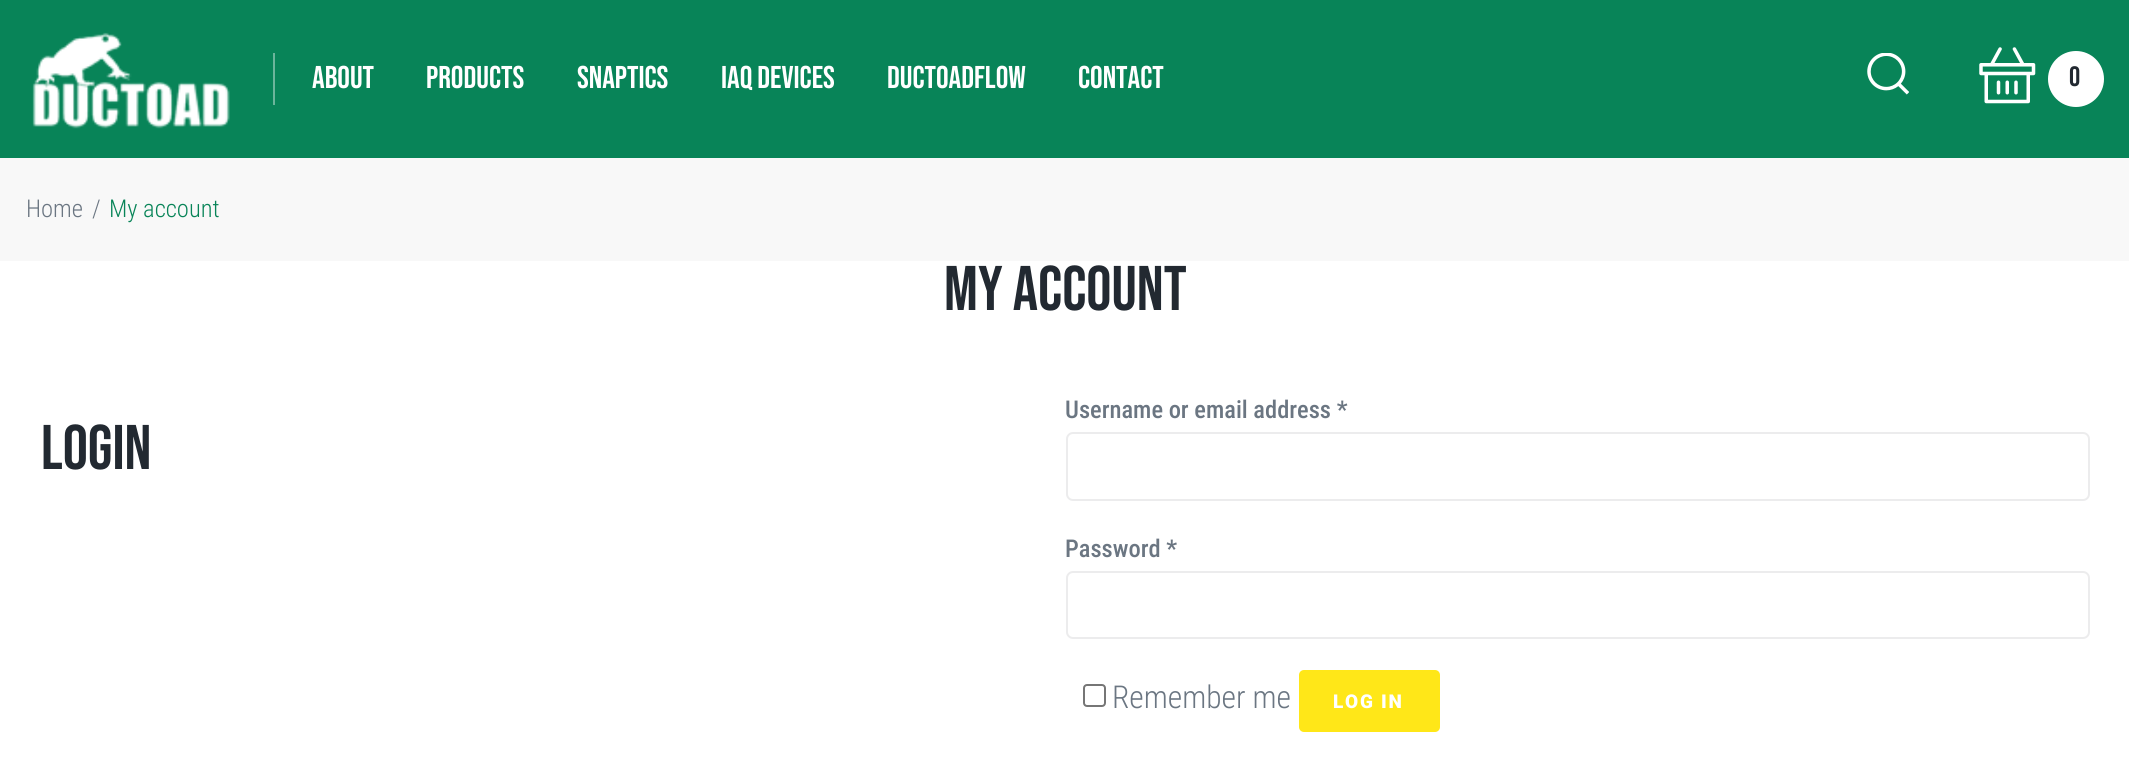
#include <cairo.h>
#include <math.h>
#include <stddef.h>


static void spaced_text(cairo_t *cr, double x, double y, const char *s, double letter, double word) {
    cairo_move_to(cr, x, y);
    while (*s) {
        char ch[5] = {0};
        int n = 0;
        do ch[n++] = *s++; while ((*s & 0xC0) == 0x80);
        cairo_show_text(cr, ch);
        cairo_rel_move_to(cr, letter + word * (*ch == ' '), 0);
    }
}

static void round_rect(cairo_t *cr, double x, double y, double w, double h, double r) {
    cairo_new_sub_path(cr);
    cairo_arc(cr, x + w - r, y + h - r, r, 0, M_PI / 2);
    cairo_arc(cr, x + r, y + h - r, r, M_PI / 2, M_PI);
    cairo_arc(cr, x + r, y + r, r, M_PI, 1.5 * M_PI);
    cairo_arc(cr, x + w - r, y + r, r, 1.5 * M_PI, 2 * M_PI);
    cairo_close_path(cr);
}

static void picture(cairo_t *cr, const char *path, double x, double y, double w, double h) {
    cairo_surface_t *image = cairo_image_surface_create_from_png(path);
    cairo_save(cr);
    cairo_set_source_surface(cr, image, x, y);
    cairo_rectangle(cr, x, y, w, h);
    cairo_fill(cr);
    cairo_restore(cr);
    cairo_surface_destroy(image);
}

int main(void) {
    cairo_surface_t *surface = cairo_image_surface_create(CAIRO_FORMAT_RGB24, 2129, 779);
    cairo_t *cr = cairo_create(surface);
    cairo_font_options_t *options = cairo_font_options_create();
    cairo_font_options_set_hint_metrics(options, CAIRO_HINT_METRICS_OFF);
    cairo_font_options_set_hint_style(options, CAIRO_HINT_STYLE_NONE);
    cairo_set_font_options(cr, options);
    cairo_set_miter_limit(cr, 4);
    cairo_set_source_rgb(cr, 1, 1, 1);
    cairo_paint(cr);
    cairo_set_source_rgb(cr, 0.035, 0.518, 0.345);
    cairo_rectangle(cr, 0, 0, 2129, 158);
    cairo_fill(cr);
    picture(cr, "img1.png", 32, 32, 198, 97);
    cairo_set_source_rgb(cr, 0.42, 0.71, 0.608);
    cairo_rectangle(cr, 273, 53, 2, 52);
    cairo_fill(cr);
    cairo_select_font_face(cr, "Bebas Neue", CAIRO_FONT_SLANT_NORMAL, CAIRO_FONT_WEIGHT_NORMAL);
    cairo_set_font_size(cr, 31.5);
    cairo_set_source_rgb(cr, 1, 1, 1);
    cairo_move_to(cr, 312, 88);
    cairo_show_text(cr, "About");
    cairo_move_to(cr, 426, 88);
    cairo_show_text(cr, "Products");
    cairo_move_to(cr, 577, 88);
    cairo_show_text(cr, "Snaptics");
    cairo_move_to(cr, 721, 88);
    cairo_show_text(cr, "IAQ Devices");
    cairo_move_to(cr, 887, 88);
    cairo_show_text(cr, "DuctoadFlow");
    cairo_move_to(cr, 1078, 88);
    cairo_show_text(cr, "Contact");
    picture(cr, "img2.png", 1867, 53, 42, 42);
    picture(cr, "img3.png", 1979, 47, 57, 57);
    cairo_arc(cr, 2076, 79, 28, 0, 2 * M_PI);
    cairo_fill(cr);
    cairo_set_font_size(cr, 28);
    cairo_set_source_rgb(cr, 0.133, 0.161, 0.192);
    cairo_move_to(cr, 2069, 86);
    cairo_show_text(cr, "0");
    cairo_set_source_rgb(cr, 0.969, 0.969, 0.969);
    cairo_rectangle(cr, 0, 158, 2129, 103);
    cairo_fill(cr);
    cairo_select_font_face(cr, "Roboto Condensed Light", CAIRO_FONT_SLANT_NORMAL, CAIRO_FONT_WEIGHT_NORMAL);
    cairo_set_font_size(cr, 24.5);
    cairo_set_source_rgb(cr, 0.42, 0.463, 0.51);
    cairo_move_to(cr, 26, 217);
    cairo_show_text(cr, "Home");
    cairo_move_to(cr, 92, 217);
    cairo_show_text(cr, "/");
    cairo_set_source_rgb(cr, 0.035, 0.518, 0.345);
    cairo_move_to(cr, 109, 217);
    cairo_show_text(cr, "My account");
    cairo_select_font_face(cr, "Bebas Neue", CAIRO_FONT_SLANT_NORMAL, CAIRO_FONT_WEIGHT_NORMAL);
    cairo_set_font_size(cr, 63);
    cairo_set_source_rgb(cr, 0.133, 0.161, 0.192);
    cairo_move_to(cr, 944, 310);
    cairo_show_text(cr, "My account");
    cairo_move_to(cr, 41, 469);
    cairo_show_text(cr, "Login");
    cairo_select_font_face(cr, "Roboto Condensed Medium", CAIRO_FONT_SLANT_NORMAL, CAIRO_FONT_WEIGHT_NORMAL);
    cairo_set_font_size(cr, 24.5);
    cairo_set_source_rgb(cr, 0.42, 0.463, 0.51);
    cairo_move_to(cr, 1065, 418);
    cairo_show_text(cr, "Username or email address *");
    round_rect(cr, 1067, 433, 1022, 67, 6);
    cairo_set_source_rgb(cr, 0.922, 0.925, 0.929);
    cairo_stroke(cr);
    cairo_set_source_rgb(cr, 0.42, 0.463, 0.51);
    cairo_move_to(cr, 1065, 557);
    cairo_show_text(cr, "Password *");
    round_rect(cr, 1067, 572, 1022, 66, 6);
    cairo_set_source_rgb(cr, 0.922, 0.925, 0.929);
    cairo_stroke(cr);
    round_rect(cr, 1084, 685, 21, 21, 3);
    cairo_set_source_rgb(cr, 0.463, 0.463, 0.463);
    cairo_stroke(cr);
    cairo_select_font_face(cr, "Roboto Condensed Light", CAIRO_FONT_SLANT_NORMAL, CAIRO_FONT_WEIGHT_NORMAL);
    cairo_set_font_size(cr, 31.5);
    cairo_set_source_rgb(cr, 0.42, 0.463, 0.51);
    cairo_move_to(cr, 1112, 708);
    cairo_show_text(cr, "Remember me");
    cairo_set_source_rgb(cr, 1, 0.906, 0.094);
    round_rect(cr, 1299, 670, 141, 62, 5);
    cairo_fill(cr);
    cairo_select_font_face(cr, "Roboto Black", CAIRO_FONT_SLANT_NORMAL, CAIRO_FONT_WEIGHT_NORMAL);
    cairo_set_font_size(cr, 19);
    cairo_set_source_rgb(cr, 1, 1, 1);
    spaced_text(cr, 1333, 708, "LOG IN", 1.75, 0);
    cairo_surface_write_to_png(surface, "page.png");
    cairo_font_options_destroy(options);
    cairo_destroy(cr);
    cairo_surface_destroy(surface);
    return 0;
}
